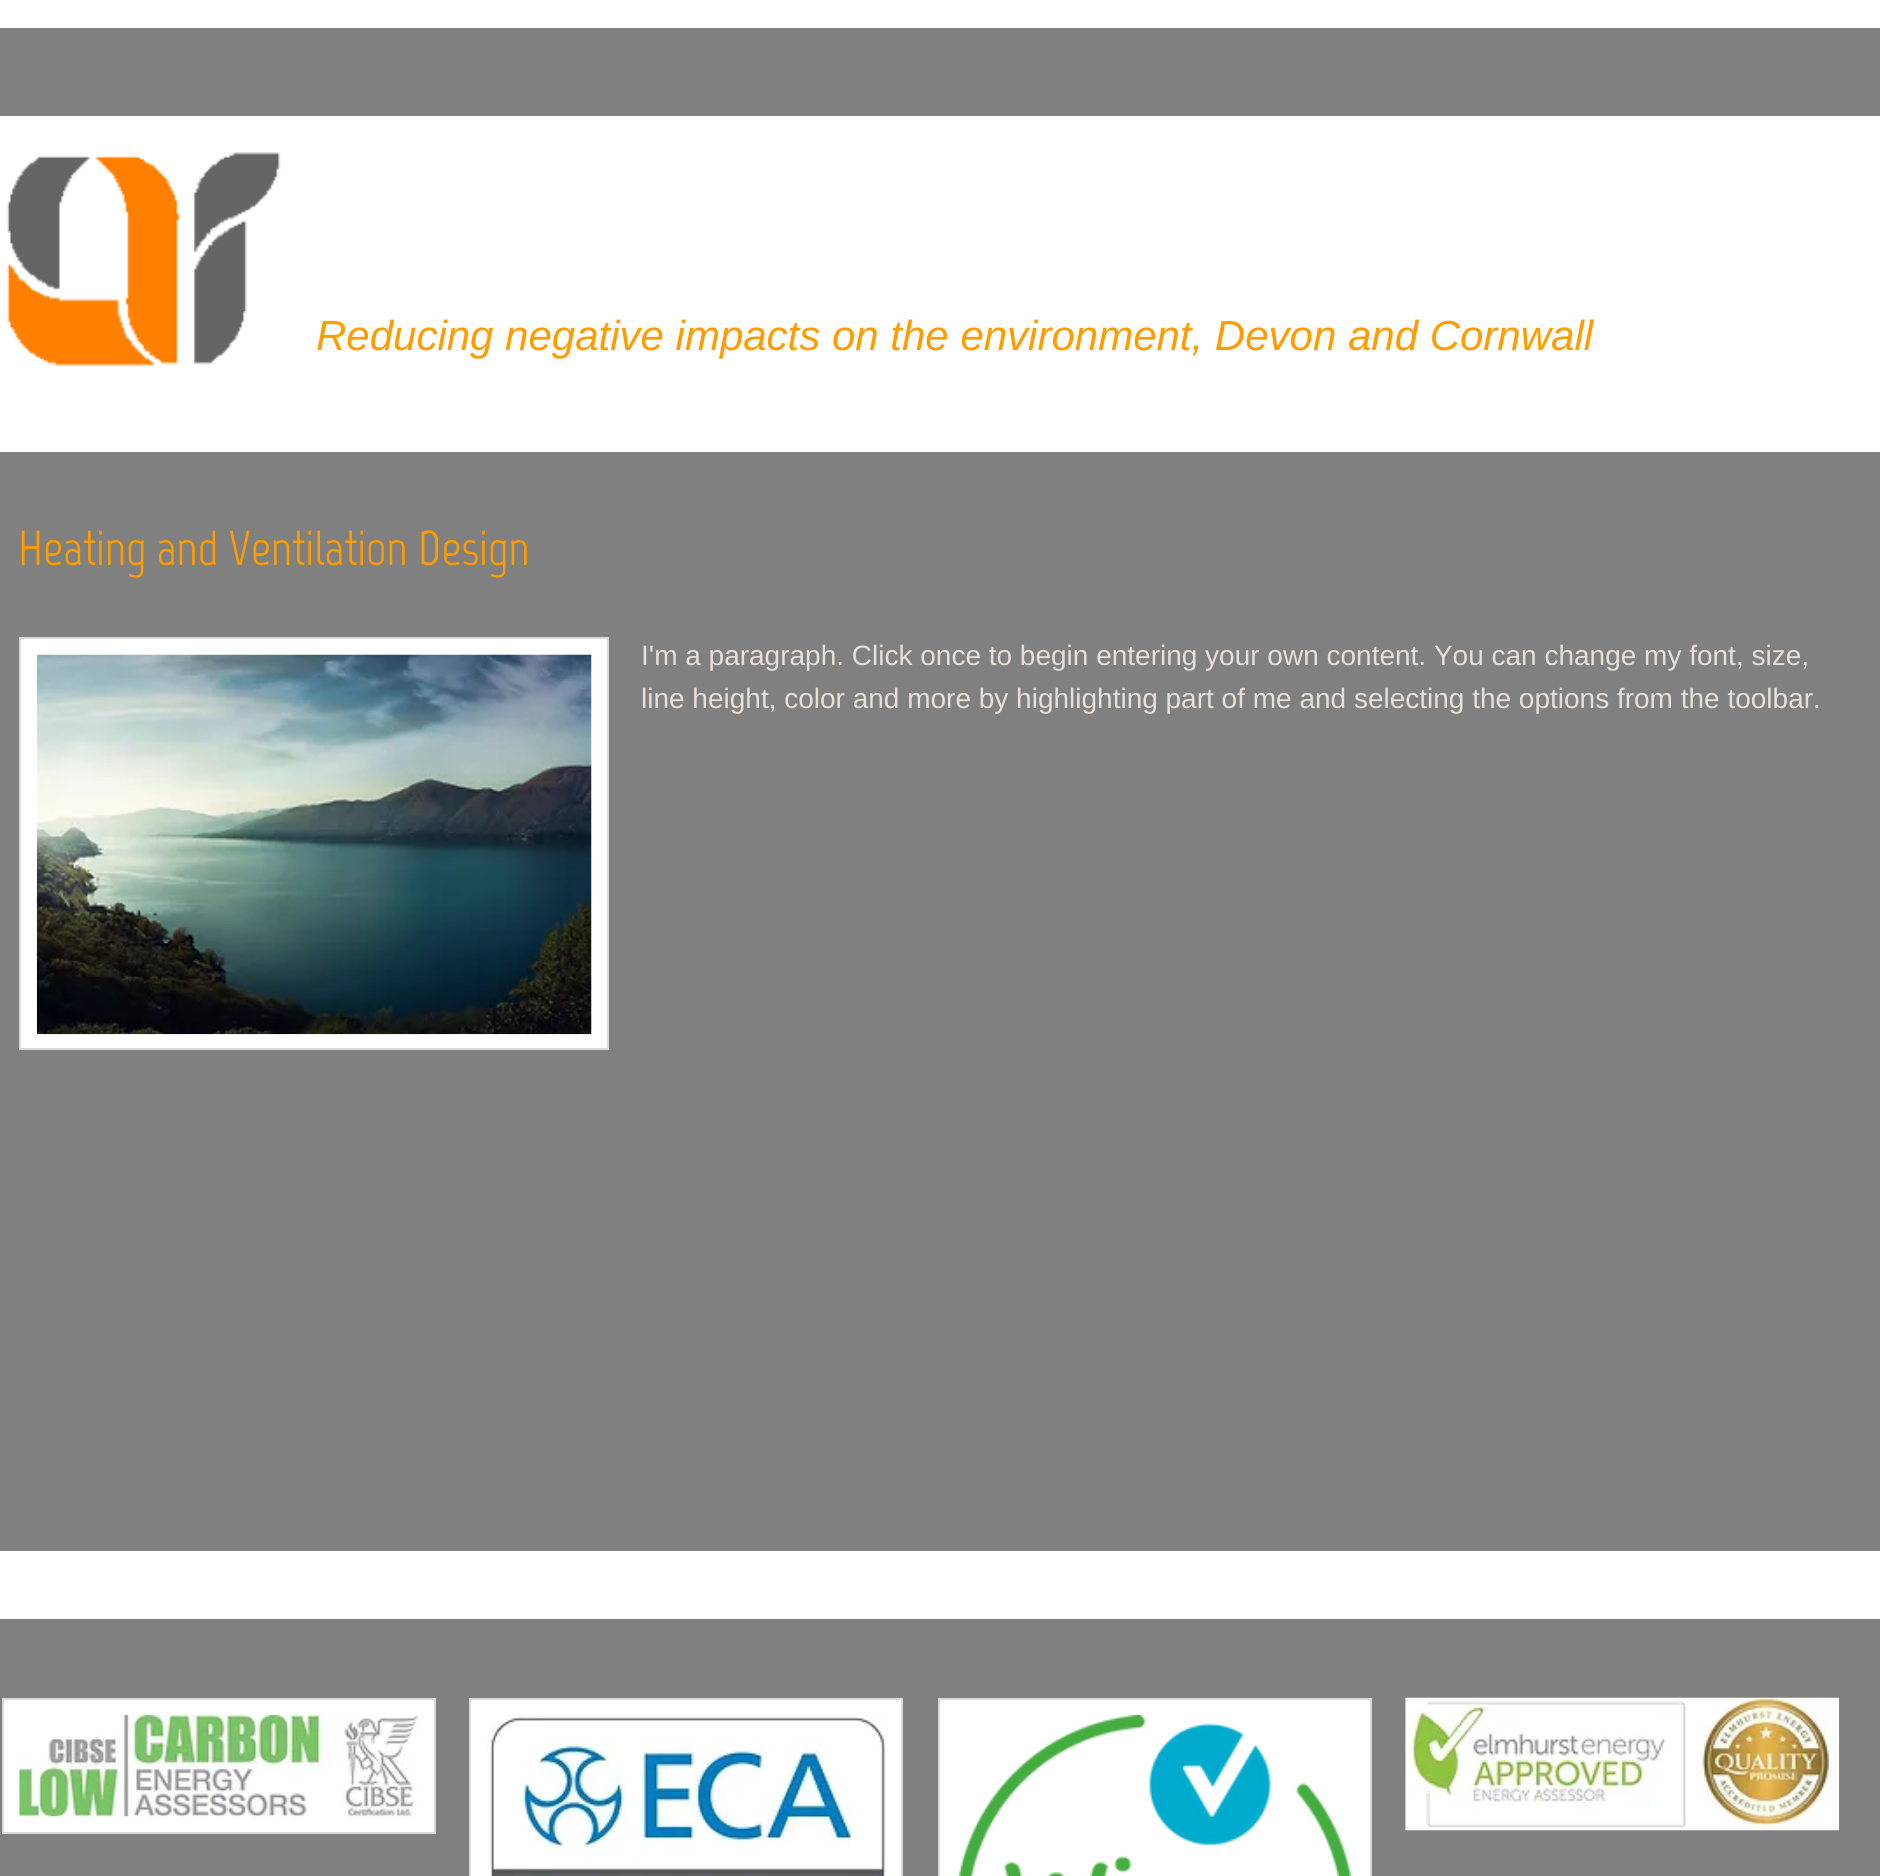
#include <cairo.h>
#include <math.h>
#include <stddef.h>


static void picture(cairo_t *cr, const char *path, double x, double y, double w, double h) {
    cairo_surface_t *image = cairo_image_surface_create_from_png(path);
    cairo_save(cr);
    cairo_set_source_surface(cr, image, x, y);
    cairo_rectangle(cr, x, y, w, h);
    cairo_fill(cr);
    cairo_restore(cr);
    cairo_surface_destroy(image);
}

int main(void) {
    cairo_surface_t *surface = cairo_image_surface_create(CAIRO_FORMAT_RGB24, 1880, 1876);
    cairo_t *cr = cairo_create(surface);
    cairo_font_options_t *options = cairo_font_options_create();
    cairo_font_options_set_hint_metrics(options, CAIRO_HINT_METRICS_OFF);
    cairo_font_options_set_hint_style(options, CAIRO_HINT_STYLE_NONE);
    cairo_set_font_options(cr, options);
    cairo_set_miter_limit(cr, 4);
    cairo_set_source_rgb(cr, 1, 1, 1);
    cairo_paint(cr);
    cairo_set_source_rgb(cr, 0.502, 0.502, 0.502);
    cairo_rectangle(cr, 0, 28, 1880, 88);
    cairo_fill(cr);
    picture(cr, "img1.png", 6, 152, 275, 215);
    cairo_select_font_face(cr, "Liberation Sans", CAIRO_FONT_SLANT_ITALIC, CAIRO_FONT_WEIGHT_NORMAL);
    cairo_set_font_size(cr, 42);
    cairo_set_source_rgb(cr, 1, 0.612, 0);
    cairo_move_to(cr, 316, 350);
    cairo_show_text(cr, "Reducing negative impacts on the environment, Devon and Cornwall");
    cairo_set_source_rgb(cr, 0.502, 0.502, 0.502);
    cairo_rectangle(cr, 0, 452, 1880, 1099);
    cairo_fill(cr);
    cairo_select_font_face(cr, "Marvel", CAIRO_FONT_SLANT_NORMAL, CAIRO_FONT_WEIGHT_NORMAL);
    cairo_set_font_size(cr, 49);
    cairo_set_source_rgb(cr, 1, 0.612, 0);
    cairo_move_to(cr, 18, 565);
    cairo_show_text(cr, "Heating and Ventilation Design");
    cairo_set_source_rgb(cr, 1, 1, 1);
    cairo_rectangle(cr, 20, 638, 588, 411);
    cairo_fill_preserve(cr);
    cairo_set_source_rgb(cr, 0.851, 0.851, 0.851);
    cairo_stroke(cr);
    picture(cr, "img2.png", 36, 654, 556, 381);
    cairo_select_font_face(cr, "Liberation Sans", CAIRO_FONT_SLANT_NORMAL, CAIRO_FONT_WEIGHT_NORMAL);
    cairo_set_font_size(cr, 28);
    cairo_set_source_rgb(cr, 0.906, 0.875, 0.847);
    cairo_move_to(cr, 641, 665);
    cairo_show_text(cr, "I'm a paragraph. Click once to begin entering your own content. You can change my font, size,");
    cairo_move_to(cr, 641, 708);
    cairo_show_text(cr, "line height, color and more by highlighting part of me and selecting the options from the toolbar.");
    cairo_set_source_rgb(cr, 0.502, 0.502, 0.502);
    cairo_rectangle(cr, 0, 1619, 1880, 257);
    cairo_fill(cr);
    cairo_set_source_rgb(cr, 1, 1, 1);
    cairo_rectangle(cr, 3, 1699, 432, 134);
    cairo_fill_preserve(cr);
    cairo_set_source_rgb(cr, 0.851, 0.851, 0.851);
    cairo_stroke(cr);
    picture(cr, "img3.png", 19, 1715, 399, 102);
    cairo_set_source_rgb(cr, 1, 1, 1);
    cairo_rectangle(cr, 470, 1699, 432, 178);
    cairo_fill_preserve(cr);
    cairo_set_source_rgb(cr, 0.851, 0.851, 0.851);
    cairo_stroke(cr);
    picture(cr, "img4.png", 487, 1715, 399, 161);
    cairo_set_source_rgb(cr, 1, 1, 1);
    cairo_rectangle(cr, 939, 1699, 432, 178);
    cairo_fill_preserve(cr);
    cairo_set_source_rgb(cr, 0.851, 0.851, 0.851);
    cairo_stroke(cr);
    picture(cr, "img5.png", 958, 1715, 394, 161);
    picture(cr, "img6.png", 1405, 1697, 435, 134);
    cairo_surface_write_to_png(surface, "page.png");
    cairo_font_options_destroy(options);
    cairo_destroy(cr);
    cairo_surface_destroy(surface);
    return 0;
}
